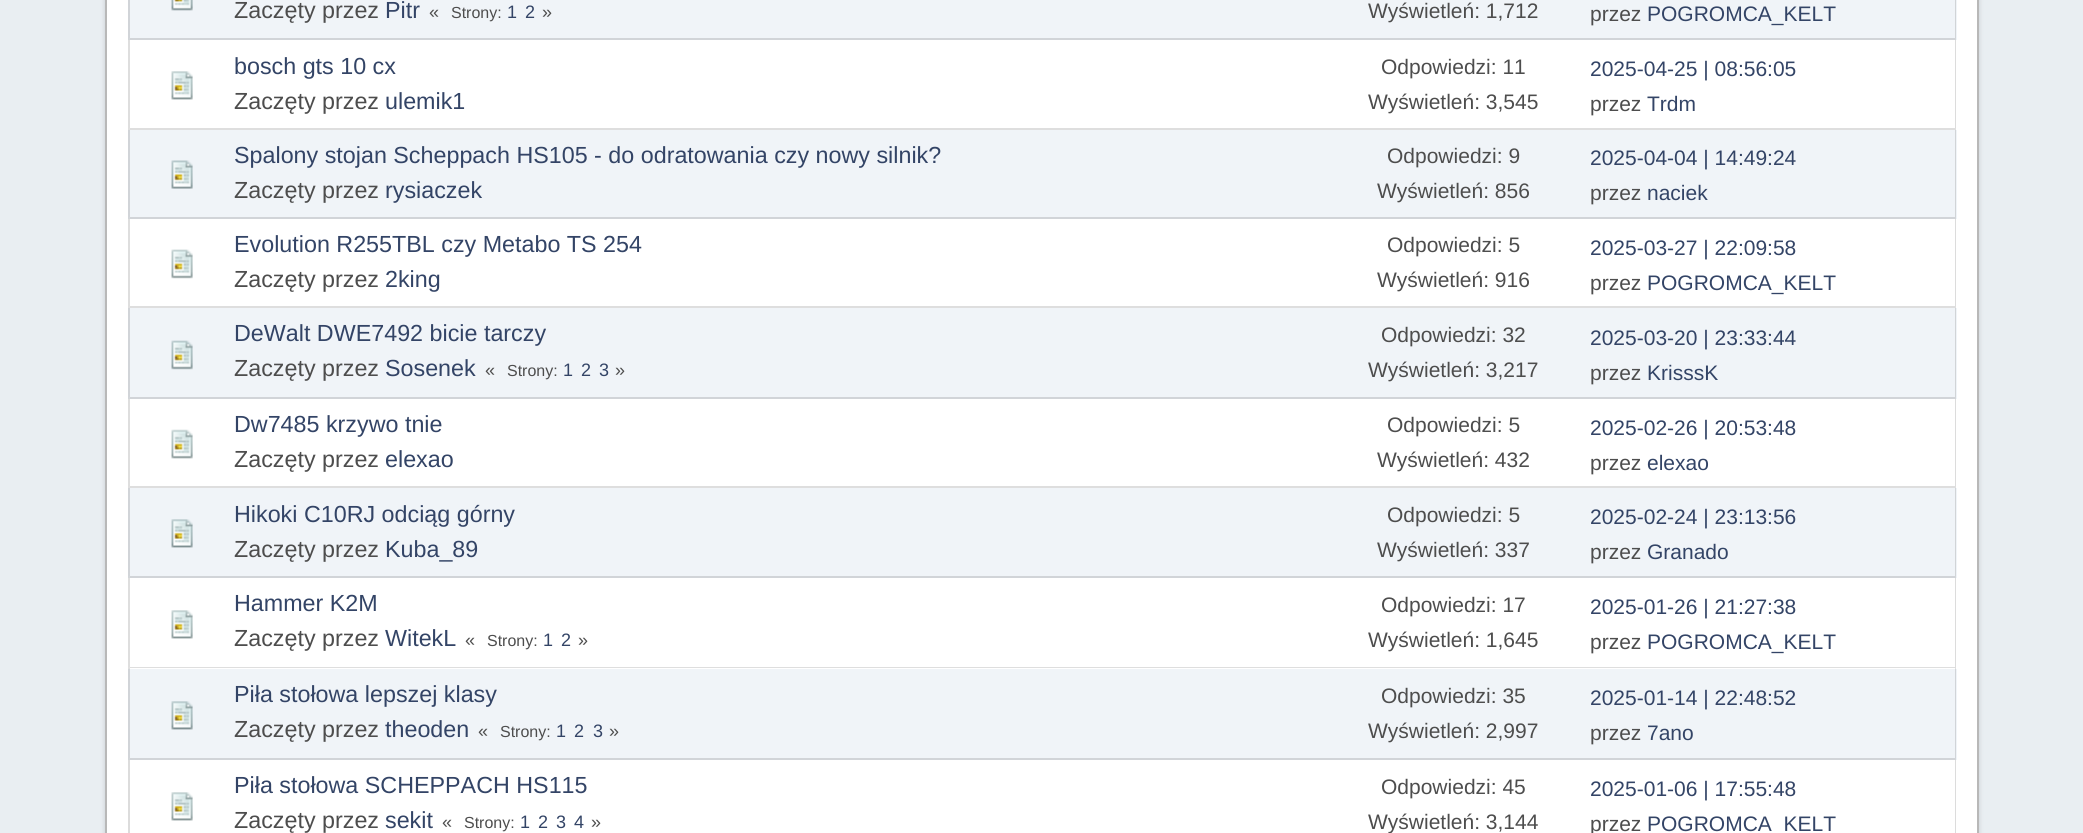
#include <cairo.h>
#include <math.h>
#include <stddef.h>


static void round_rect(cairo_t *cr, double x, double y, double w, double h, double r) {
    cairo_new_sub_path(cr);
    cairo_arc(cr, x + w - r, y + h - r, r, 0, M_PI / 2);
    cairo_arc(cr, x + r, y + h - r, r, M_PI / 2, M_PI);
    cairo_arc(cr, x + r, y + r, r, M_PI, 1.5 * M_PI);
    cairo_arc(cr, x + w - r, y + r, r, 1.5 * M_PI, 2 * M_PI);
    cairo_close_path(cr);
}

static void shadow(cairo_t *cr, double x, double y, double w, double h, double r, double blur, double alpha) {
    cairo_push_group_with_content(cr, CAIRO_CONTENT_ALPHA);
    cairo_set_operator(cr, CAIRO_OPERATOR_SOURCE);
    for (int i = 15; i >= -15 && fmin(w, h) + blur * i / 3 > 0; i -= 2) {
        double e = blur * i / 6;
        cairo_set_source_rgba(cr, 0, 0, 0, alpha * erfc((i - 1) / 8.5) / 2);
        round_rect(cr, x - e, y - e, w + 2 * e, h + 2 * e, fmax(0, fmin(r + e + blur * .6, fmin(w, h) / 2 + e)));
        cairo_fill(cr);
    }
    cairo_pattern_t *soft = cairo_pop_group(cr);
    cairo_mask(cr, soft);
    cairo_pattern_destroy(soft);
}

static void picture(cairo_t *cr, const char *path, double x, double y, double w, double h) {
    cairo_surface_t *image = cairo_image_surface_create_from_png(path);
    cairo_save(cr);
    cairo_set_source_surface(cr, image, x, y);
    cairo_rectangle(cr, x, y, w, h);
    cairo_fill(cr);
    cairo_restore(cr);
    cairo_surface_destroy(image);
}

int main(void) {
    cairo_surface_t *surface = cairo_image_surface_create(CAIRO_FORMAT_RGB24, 2083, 833);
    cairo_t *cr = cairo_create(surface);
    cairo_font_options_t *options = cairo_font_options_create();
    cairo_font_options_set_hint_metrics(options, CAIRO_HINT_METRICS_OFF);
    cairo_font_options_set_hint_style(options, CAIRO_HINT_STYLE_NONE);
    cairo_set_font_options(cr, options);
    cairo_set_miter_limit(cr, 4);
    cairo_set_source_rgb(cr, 0.914, 0.933, 0.949);
    cairo_paint(cr);
    cairo_set_source_rgb(cr, 0, 0, 0);
    shadow(cr, 105, -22, 1874, 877, 14, 2.5, 0.14);
    cairo_set_source_rgb(cr, 1, 1, 1);
    cairo_rectangle(cr, 106, -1, 1872, 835);
    cairo_fill_preserve(cr);
    cairo_set_source_rgb(cr, 0.722, 0.722, 0.722);
    cairo_stroke(cr);
    cairo_set_source_rgb(cr, 0.941, 0.957, 0.969);
    cairo_rectangle(cr, 128, 0, 1829, 40);
    cairo_fill(cr);
    cairo_set_source_rgb(cr, 0.82, 0.831, 0.843);
    cairo_new_path(cr);
    cairo_move_to(cr, 1956, -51);
    cairo_line_to(cr, 1956, 40);
    cairo_line_to(cr, 1955, 38);
    cairo_line_to(cr, 1955, -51);
    cairo_close_path(cr);
    cairo_fill(cr);
    cairo_set_source_rgba(cr, 0, 0, 0, 0.13);
    cairo_new_path(cr);
    cairo_move_to(cr, 1956, 40);
    cairo_line_to(cr, 128, 40);
    cairo_line_to(cr, 130, 38);
    cairo_line_to(cr, 1955, 38);
    cairo_close_path(cr);
    cairo_fill(cr);
    cairo_new_path(cr);
    cairo_move_to(cr, 128, 40);
    cairo_line_to(cr, 128, -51);
    cairo_line_to(cr, 130, -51);
    cairo_line_to(cr, 130, 38);
    cairo_close_path(cr);
    cairo_fill(cr);
    picture(cr, "img1.png", 171, 0, 22, 11);
    cairo_select_font_face(cr, "Liberation Sans", CAIRO_FONT_SLANT_NORMAL, CAIRO_FONT_WEIGHT_NORMAL);
    cairo_set_font_size(cr, 23.3);
    cairo_set_source_rgb(cr, 0.302, 0.302, 0.302);
    cairo_move_to(cr, 234, 18);
    cairo_show_text(cr, "Zaczęty przez");
    cairo_set_source_rgb(cr, 0.2, 0.267, 0.4);
    cairo_move_to(cr, 385, 18);
    cairo_show_text(cr, "Pitr");
    cairo_set_font_size(cr, 18);
    cairo_set_source_rgb(cr, 0.302, 0.302, 0.302);
    cairo_move_to(cr, 429, 18);
    cairo_show_text(cr, "«");
    cairo_set_font_size(cr, 16);
    cairo_move_to(cr, 451, 18);
    cairo_show_text(cr, "Strony:");
    cairo_set_font_size(cr, 18);
    cairo_set_source_rgb(cr, 0.2, 0.267, 0.4);
    cairo_move_to(cr, 507, 18);
    cairo_show_text(cr, "1");
    cairo_move_to(cr, 525, 18);
    cairo_show_text(cr, "2");
    cairo_set_source_rgb(cr, 0.302, 0.302, 0.302);
    cairo_move_to(cr, 542, 18);
    cairo_show_text(cr, "»");
    cairo_set_font_size(cr, 21);
    cairo_move_to(cr, 1368, 18);
    cairo_show_text(cr, "Wyświetleń: 1,712");
    cairo_move_to(cr, 1590, 21);
    cairo_show_text(cr, "przez");
    cairo_set_source_rgb(cr, 0.2, 0.267, 0.4);
    cairo_move_to(cr, 1647, 21);
    cairo_show_text(cr, "POGROMCA_KELT");
    cairo_set_source_rgb(cr, 0.863, 0.863, 0.863);
    cairo_new_path(cr);
    cairo_move_to(cr, 1956, 40);
    cairo_line_to(cr, 1956, 130);
    cairo_line_to(cr, 1955, 128);
    cairo_line_to(cr, 1955, 40);
    cairo_close_path(cr);
    cairo_fill(cr);
    cairo_set_source_rgba(cr, 0, 0, 0, 0.13);
    cairo_new_path(cr);
    cairo_move_to(cr, 1956, 130);
    cairo_line_to(cr, 128, 130);
    cairo_line_to(cr, 130, 128);
    cairo_line_to(cr, 1955, 128);
    cairo_close_path(cr);
    cairo_fill(cr);
    cairo_new_path(cr);
    cairo_move_to(cr, 128, 130);
    cairo_line_to(cr, 128, 40);
    cairo_line_to(cr, 130, 40);
    cairo_line_to(cr, 130, 128);
    cairo_close_path(cr);
    cairo_fill(cr);
    picture(cr, "img2.png", 171, 71, 22, 29);
    cairo_set_font_size(cr, 23.3);
    cairo_set_source_rgb(cr, 0.2, 0.267, 0.4);
    cairo_move_to(cr, 234, 74);
    cairo_show_text(cr, "bosch gts 10 cx");
    cairo_set_source_rgb(cr, 0.302, 0.302, 0.302);
    cairo_move_to(cr, 234, 109);
    cairo_show_text(cr, "Zaczęty przez");
    cairo_set_source_rgb(cr, 0.2, 0.267, 0.4);
    cairo_move_to(cr, 385, 109);
    cairo_show_text(cr, "ulemik1");
    cairo_set_font_size(cr, 21);
    cairo_set_source_rgb(cr, 0.302, 0.302, 0.302);
    cairo_move_to(cr, 1381, 74);
    cairo_show_text(cr, "Odpowiedzi: 11");
    cairo_move_to(cr, 1368, 109);
    cairo_show_text(cr, "Wyświetleń: 3,545");
    cairo_set_source_rgb(cr, 0.2, 0.267, 0.4);
    cairo_move_to(cr, 1590, 76);
    cairo_show_text(cr, "2025-04-25 | 08:56:05");
    cairo_set_source_rgb(cr, 0.302, 0.302, 0.302);
    cairo_move_to(cr, 1590, 111);
    cairo_show_text(cr, "przez");
    cairo_set_source_rgb(cr, 0.2, 0.267, 0.4);
    cairo_move_to(cr, 1647, 111);
    cairo_show_text(cr, "Trdm");
    cairo_set_source_rgb(cr, 0.941, 0.957, 0.969);
    cairo_rectangle(cr, 128, 130, 1829, 89);
    cairo_fill(cr);
    cairo_set_source_rgb(cr, 0.82, 0.831, 0.843);
    cairo_new_path(cr);
    cairo_move_to(cr, 1956, 130);
    cairo_line_to(cr, 1956, 219);
    cairo_line_to(cr, 1955, 217);
    cairo_line_to(cr, 1955, 130);
    cairo_close_path(cr);
    cairo_fill(cr);
    cairo_set_source_rgba(cr, 0, 0, 0, 0.13);
    cairo_new_path(cr);
    cairo_move_to(cr, 1956, 219);
    cairo_line_to(cr, 128, 219);
    cairo_line_to(cr, 130, 217);
    cairo_line_to(cr, 1955, 217);
    cairo_close_path(cr);
    cairo_fill(cr);
    cairo_new_path(cr);
    cairo_move_to(cr, 128, 219);
    cairo_line_to(cr, 128, 130);
    cairo_line_to(cr, 130, 130);
    cairo_line_to(cr, 130, 217);
    cairo_close_path(cr);
    cairo_fill(cr);
    picture(cr, "img3.png", 171, 160, 22, 29);
    cairo_set_font_size(cr, 23.3);
    cairo_set_source_rgb(cr, 0.2, 0.267, 0.4);
    cairo_move_to(cr, 234, 163);
    cairo_show_text(cr, "Spalony stojan Scheppach HS105 - do odratowania czy nowy silnik?");
    cairo_set_source_rgb(cr, 0.302, 0.302, 0.302);
    cairo_move_to(cr, 234, 198);
    cairo_show_text(cr, "Zaczęty przez");
    cairo_set_source_rgb(cr, 0.2, 0.267, 0.4);
    cairo_move_to(cr, 385, 198);
    cairo_show_text(cr, "rysiaczek");
    cairo_set_font_size(cr, 21);
    cairo_set_source_rgb(cr, 0.302, 0.302, 0.302);
    cairo_move_to(cr, 1387, 163);
    cairo_show_text(cr, "Odpowiedzi: 9");
    cairo_move_to(cr, 1377, 198);
    cairo_show_text(cr, "Wyświetleń: 856");
    cairo_set_source_rgb(cr, 0.2, 0.267, 0.4);
    cairo_move_to(cr, 1590, 165);
    cairo_show_text(cr, "2025-04-04 | 14:49:24");
    cairo_set_source_rgb(cr, 0.302, 0.302, 0.302);
    cairo_move_to(cr, 1590, 200);
    cairo_show_text(cr, "przez");
    cairo_set_source_rgb(cr, 0.2, 0.267, 0.4);
    cairo_move_to(cr, 1647, 200);
    cairo_show_text(cr, "naciek");
    cairo_set_source_rgb(cr, 0.863, 0.863, 0.863);
    cairo_new_path(cr);
    cairo_move_to(cr, 1956, 219);
    cairo_line_to(cr, 1956, 308);
    cairo_line_to(cr, 1955, 306);
    cairo_line_to(cr, 1955, 219);
    cairo_close_path(cr);
    cairo_fill(cr);
    cairo_set_source_rgba(cr, 0, 0, 0, 0.13);
    cairo_new_path(cr);
    cairo_move_to(cr, 1956, 308);
    cairo_line_to(cr, 128, 308);
    cairo_line_to(cr, 130, 306);
    cairo_line_to(cr, 1955, 306);
    cairo_close_path(cr);
    cairo_fill(cr);
    cairo_new_path(cr);
    cairo_move_to(cr, 128, 308);
    cairo_line_to(cr, 128, 219);
    cairo_line_to(cr, 130, 219);
    cairo_line_to(cr, 130, 306);
    cairo_close_path(cr);
    cairo_fill(cr);
    picture(cr, "img4.png", 171, 249, 22, 30);
    cairo_set_font_size(cr, 23.3);
    cairo_set_source_rgb(cr, 0.2, 0.267, 0.4);
    cairo_move_to(cr, 234, 252);
    cairo_show_text(cr, "Evolution R255TBL czy Metabo TS 254");
    cairo_set_source_rgb(cr, 0.302, 0.302, 0.302);
    cairo_move_to(cr, 234, 287);
    cairo_show_text(cr, "Zaczęty przez");
    cairo_set_source_rgb(cr, 0.2, 0.267, 0.4);
    cairo_move_to(cr, 385, 287);
    cairo_show_text(cr, "2king");
    cairo_set_font_size(cr, 21);
    cairo_set_source_rgb(cr, 0.302, 0.302, 0.302);
    cairo_move_to(cr, 1387, 252);
    cairo_show_text(cr, "Odpowiedzi: 5");
    cairo_move_to(cr, 1377, 287);
    cairo_show_text(cr, "Wyświetleń: 916");
    cairo_set_source_rgb(cr, 0.2, 0.267, 0.4);
    cairo_move_to(cr, 1590, 255);
    cairo_show_text(cr, "2025-03-27 | 22:09:58");
    cairo_set_source_rgb(cr, 0.302, 0.302, 0.302);
    cairo_move_to(cr, 1590, 290);
    cairo_show_text(cr, "przez");
    cairo_set_source_rgb(cr, 0.2, 0.267, 0.4);
    cairo_move_to(cr, 1647, 290);
    cairo_show_text(cr, "POGROMCA_KELT");
    cairo_set_source_rgb(cr, 0.941, 0.957, 0.969);
    cairo_rectangle(cr, 128, 308, 1829, 91);
    cairo_fill(cr);
    cairo_set_source_rgb(cr, 0.82, 0.831, 0.843);
    cairo_new_path(cr);
    cairo_move_to(cr, 1956, 308);
    cairo_line_to(cr, 1956, 399);
    cairo_line_to(cr, 1955, 397);
    cairo_line_to(cr, 1955, 308);
    cairo_close_path(cr);
    cairo_fill(cr);
    cairo_set_source_rgba(cr, 0, 0, 0, 0.13);
    cairo_new_path(cr);
    cairo_move_to(cr, 1956, 399);
    cairo_line_to(cr, 128, 399);
    cairo_line_to(cr, 130, 397);
    cairo_line_to(cr, 1955, 397);
    cairo_close_path(cr);
    cairo_fill(cr);
    cairo_new_path(cr);
    cairo_move_to(cr, 128, 399);
    cairo_line_to(cr, 128, 308);
    cairo_line_to(cr, 130, 308);
    cairo_line_to(cr, 130, 397);
    cairo_close_path(cr);
    cairo_fill(cr);
    picture(cr, "img5.png", 171, 340, 22, 30);
    cairo_set_font_size(cr, 23.3);
    cairo_set_source_rgb(cr, 0.2, 0.267, 0.4);
    cairo_move_to(cr, 234, 341);
    cairo_show_text(cr, "DeWalt DWE7492 bicie tarczy");
    cairo_set_source_rgb(cr, 0.302, 0.302, 0.302);
    cairo_move_to(cr, 234, 376);
    cairo_show_text(cr, "Zaczęty przez");
    cairo_set_source_rgb(cr, 0.2, 0.267, 0.4);
    cairo_move_to(cr, 385, 376);
    cairo_show_text(cr, "Sosenek");
    cairo_set_font_size(cr, 18);
    cairo_set_source_rgb(cr, 0.302, 0.302, 0.302);
    cairo_move_to(cr, 485, 376);
    cairo_show_text(cr, "«");
    cairo_set_font_size(cr, 16);
    cairo_move_to(cr, 507, 376);
    cairo_show_text(cr, "Strony:");
    cairo_set_font_size(cr, 18);
    cairo_set_source_rgb(cr, 0.2, 0.267, 0.4);
    cairo_move_to(cr, 563, 376);
    cairo_show_text(cr, "1");
    cairo_move_to(cr, 581, 376);
    cairo_show_text(cr, "2");
    cairo_move_to(cr, 599, 376);
    cairo_show_text(cr, "3");
    cairo_set_source_rgb(cr, 0.302, 0.302, 0.302);
    cairo_move_to(cr, 615, 376);
    cairo_show_text(cr, "»");
    cairo_set_font_size(cr, 21);
    cairo_move_to(cr, 1381, 342);
    cairo_show_text(cr, "Odpowiedzi: 32");
    cairo_move_to(cr, 1368, 377);
    cairo_show_text(cr, "Wyświetleń: 3,217");
    cairo_set_source_rgb(cr, 0.2, 0.267, 0.4);
    cairo_move_to(cr, 1590, 345);
    cairo_show_text(cr, "2025-03-20 | 23:33:44");
    cairo_set_source_rgb(cr, 0.302, 0.302, 0.302);
    cairo_move_to(cr, 1590, 380);
    cairo_show_text(cr, "przez");
    cairo_set_source_rgb(cr, 0.2, 0.267, 0.4);
    cairo_move_to(cr, 1647, 380);
    cairo_show_text(cr, "KrisssK");
    cairo_set_source_rgb(cr, 0.863, 0.863, 0.863);
    cairo_new_path(cr);
    cairo_move_to(cr, 1956, 399);
    cairo_line_to(cr, 1956, 488);
    cairo_line_to(cr, 1955, 486);
    cairo_line_to(cr, 1955, 399);
    cairo_close_path(cr);
    cairo_fill(cr);
    cairo_set_source_rgba(cr, 0, 0, 0, 0.13);
    cairo_new_path(cr);
    cairo_move_to(cr, 1956, 488);
    cairo_line_to(cr, 128, 488);
    cairo_line_to(cr, 130, 486);
    cairo_line_to(cr, 1955, 486);
    cairo_close_path(cr);
    cairo_fill(cr);
    cairo_new_path(cr);
    cairo_move_to(cr, 128, 488);
    cairo_line_to(cr, 128, 399);
    cairo_line_to(cr, 130, 399);
    cairo_line_to(cr, 130, 486);
    cairo_close_path(cr);
    cairo_fill(cr);
    picture(cr, "img6.png", 171, 429, 22, 30);
    cairo_set_font_size(cr, 23.3);
    cairo_set_source_rgb(cr, 0.2, 0.267, 0.4);
    cairo_move_to(cr, 234, 432);
    cairo_show_text(cr, "Dw7485 krzywo tnie");
    cairo_set_source_rgb(cr, 0.302, 0.302, 0.302);
    cairo_move_to(cr, 234, 467);
    cairo_show_text(cr, "Zaczęty przez");
    cairo_set_source_rgb(cr, 0.2, 0.267, 0.4);
    cairo_move_to(cr, 385, 467);
    cairo_show_text(cr, "elexao");
    cairo_set_font_size(cr, 21);
    cairo_set_source_rgb(cr, 0.302, 0.302, 0.302);
    cairo_move_to(cr, 1387, 432);
    cairo_show_text(cr, "Odpowiedzi: 5");
    cairo_move_to(cr, 1377, 467);
    cairo_show_text(cr, "Wyświetleń: 432");
    cairo_set_source_rgb(cr, 0.2, 0.267, 0.4);
    cairo_move_to(cr, 1590, 435);
    cairo_show_text(cr, "2025-02-26 | 20:53:48");
    cairo_set_source_rgb(cr, 0.302, 0.302, 0.302);
    cairo_move_to(cr, 1590, 470);
    cairo_show_text(cr, "przez");
    cairo_set_source_rgb(cr, 0.2, 0.267, 0.4);
    cairo_move_to(cr, 1647, 470);
    cairo_show_text(cr, "elexao");
    cairo_set_source_rgb(cr, 0.941, 0.957, 0.969);
    cairo_rectangle(cr, 128, 488, 1829, 90);
    cairo_fill(cr);
    cairo_set_source_rgb(cr, 0.82, 0.831, 0.843);
    cairo_new_path(cr);
    cairo_move_to(cr, 1956, 488);
    cairo_line_to(cr, 1956, 578);
    cairo_line_to(cr, 1955, 576);
    cairo_line_to(cr, 1955, 488);
    cairo_close_path(cr);
    cairo_fill(cr);
    cairo_set_source_rgba(cr, 0, 0, 0, 0.13);
    cairo_new_path(cr);
    cairo_move_to(cr, 1956, 578);
    cairo_line_to(cr, 128, 578);
    cairo_line_to(cr, 130, 576);
    cairo_line_to(cr, 1955, 576);
    cairo_close_path(cr);
    cairo_fill(cr);
    cairo_new_path(cr);
    cairo_move_to(cr, 128, 578);
    cairo_line_to(cr, 128, 488);
    cairo_line_to(cr, 130, 488);
    cairo_line_to(cr, 130, 576);
    cairo_close_path(cr);
    cairo_fill(cr);
    picture(cr, "img7.png", 171, 519, 22, 29);
    cairo_set_font_size(cr, 23.3);
    cairo_set_source_rgb(cr, 0.2, 0.267, 0.4);
    cairo_move_to(cr, 234, 522);
    cairo_show_text(cr, "Hikoki C10RJ odciąg górny");
    cairo_set_source_rgb(cr, 0.302, 0.302, 0.302);
    cairo_move_to(cr, 234, 557);
    cairo_show_text(cr, "Zaczęty przez");
    cairo_set_source_rgb(cr, 0.2, 0.267, 0.4);
    cairo_move_to(cr, 385, 557);
    cairo_show_text(cr, "Kuba_89");
    cairo_set_font_size(cr, 21);
    cairo_set_source_rgb(cr, 0.302, 0.302, 0.302);
    cairo_move_to(cr, 1387, 522);
    cairo_show_text(cr, "Odpowiedzi: 5");
    cairo_move_to(cr, 1377, 557);
    cairo_show_text(cr, "Wyświetleń: 337");
    cairo_set_source_rgb(cr, 0.2, 0.267, 0.4);
    cairo_move_to(cr, 1590, 524);
    cairo_show_text(cr, "2025-02-24 | 23:13:56");
    cairo_set_source_rgb(cr, 0.302, 0.302, 0.302);
    cairo_move_to(cr, 1590, 559);
    cairo_show_text(cr, "przez");
    cairo_set_source_rgb(cr, 0.2, 0.267, 0.4);
    cairo_move_to(cr, 1647, 559);
    cairo_show_text(cr, "Granado");
    cairo_set_source_rgb(cr, 0.863, 0.863, 0.863);
    cairo_new_path(cr);
    cairo_move_to(cr, 1956, 578);
    cairo_line_to(cr, 1956, 668);
    cairo_line_to(cr, 1955, 667);
    cairo_line_to(cr, 1955, 578);
    cairo_close_path(cr);
    cairo_fill(cr);
    cairo_set_source_rgba(cr, 0, 0, 0, 0.13);
    cairo_new_path(cr);
    cairo_move_to(cr, 1956, 668);
    cairo_line_to(cr, 128, 668);
    cairo_line_to(cr, 130, 667);
    cairo_line_to(cr, 1955, 667);
    cairo_close_path(cr);
    cairo_fill(cr);
    cairo_new_path(cr);
    cairo_move_to(cr, 128, 668);
    cairo_line_to(cr, 128, 578);
    cairo_line_to(cr, 130, 578);
    cairo_line_to(cr, 130, 667);
    cairo_close_path(cr);
    cairo_fill(cr);
    picture(cr, "img8.png", 171, 610, 22, 29);
    cairo_set_font_size(cr, 23.3);
    cairo_set_source_rgb(cr, 0.2, 0.267, 0.4);
    cairo_move_to(cr, 234, 611);
    cairo_show_text(cr, "Hammer K2M");
    cairo_set_source_rgb(cr, 0.302, 0.302, 0.302);
    cairo_move_to(cr, 234, 646);
    cairo_show_text(cr, "Zaczęty przez");
    cairo_set_source_rgb(cr, 0.2, 0.267, 0.4);
    cairo_move_to(cr, 385, 646);
    cairo_show_text(cr, "WitekL");
    cairo_set_font_size(cr, 18);
    cairo_set_source_rgb(cr, 0.302, 0.302, 0.302);
    cairo_move_to(cr, 465, 646);
    cairo_show_text(cr, "«");
    cairo_set_font_size(cr, 16);
    cairo_move_to(cr, 487, 646);
    cairo_show_text(cr, "Strony:");
    cairo_set_font_size(cr, 18);
    cairo_set_source_rgb(cr, 0.2, 0.267, 0.4);
    cairo_move_to(cr, 543, 646);
    cairo_show_text(cr, "1");
    cairo_move_to(cr, 561, 646);
    cairo_show_text(cr, "2");
    cairo_set_source_rgb(cr, 0.302, 0.302, 0.302);
    cairo_move_to(cr, 578, 646);
    cairo_show_text(cr, "»");
    cairo_set_font_size(cr, 21);
    cairo_move_to(cr, 1381, 612);
    cairo_show_text(cr, "Odpowiedzi: 17");
    cairo_move_to(cr, 1368, 647);
    cairo_show_text(cr, "Wyświetleń: 1,645");
    cairo_set_source_rgb(cr, 0.2, 0.267, 0.4);
    cairo_move_to(cr, 1590, 614);
    cairo_show_text(cr, "2025-01-26 | 21:27:38");
    cairo_set_source_rgb(cr, 0.302, 0.302, 0.302);
    cairo_move_to(cr, 1590, 649);
    cairo_show_text(cr, "przez");
    cairo_set_source_rgb(cr, 0.2, 0.267, 0.4);
    cairo_move_to(cr, 1647, 649);
    cairo_show_text(cr, "POGROMCA_KELT");
    cairo_set_source_rgb(cr, 0.941, 0.957, 0.969);
    cairo_rectangle(cr, 128, 669, 1829, 91);
    cairo_fill(cr);
    cairo_set_source_rgba(cr, 0, 0, 0, 0.13);
    cairo_new_path(cr);
    cairo_move_to(cr, 1956, 668);
    cairo_line_to(cr, 1956, 760);
    cairo_line_to(cr, 1955, 758);
    cairo_line_to(cr, 1955, 668);
    cairo_close_path(cr);
    cairo_fill(cr);
    cairo_new_path(cr);
    cairo_move_to(cr, 1956, 760);
    cairo_line_to(cr, 128, 760);
    cairo_line_to(cr, 130, 758);
    cairo_line_to(cr, 1955, 758);
    cairo_close_path(cr);
    cairo_fill(cr);
    cairo_new_path(cr);
    cairo_move_to(cr, 128, 760);
    cairo_line_to(cr, 128, 668);
    cairo_line_to(cr, 130, 668);
    cairo_line_to(cr, 130, 758);
    cairo_close_path(cr);
    cairo_fill(cr);
    picture(cr, "img9.png", 171, 701, 22, 29);
    cairo_set_font_size(cr, 23.3);
    cairo_set_source_rgb(cr, 0.2, 0.267, 0.4);
    cairo_move_to(cr, 234, 702);
    cairo_show_text(cr, "Piła stołowa lepszej klasy");
    cairo_set_source_rgb(cr, 0.302, 0.302, 0.302);
    cairo_move_to(cr, 234, 737);
    cairo_show_text(cr, "Zaczęty przez");
    cairo_set_source_rgb(cr, 0.2, 0.267, 0.4);
    cairo_move_to(cr, 385, 737);
    cairo_show_text(cr, "theoden");
    cairo_set_font_size(cr, 18);
    cairo_set_source_rgb(cr, 0.302, 0.302, 0.302);
    cairo_move_to(cr, 478, 737);
    cairo_show_text(cr, "«");
    cairo_set_font_size(cr, 16);
    cairo_move_to(cr, 500, 737);
    cairo_show_text(cr, "Strony:");
    cairo_set_font_size(cr, 18);
    cairo_set_source_rgb(cr, 0.2, 0.267, 0.4);
    cairo_move_to(cr, 556, 737);
    cairo_show_text(cr, "1");
    cairo_move_to(cr, 574, 737);
    cairo_show_text(cr, "2");
    cairo_move_to(cr, 593, 737);
    cairo_show_text(cr, "3");
    cairo_set_source_rgb(cr, 0.302, 0.302, 0.302);
    cairo_move_to(cr, 609, 737);
    cairo_show_text(cr, "»");
    cairo_set_font_size(cr, 21);
    cairo_move_to(cr, 1381, 703);
    cairo_show_text(cr, "Odpowiedzi: 35");
    cairo_move_to(cr, 1368, 738);
    cairo_show_text(cr, "Wyświetleń: 2,997");
    cairo_set_source_rgb(cr, 0.2, 0.267, 0.4);
    cairo_move_to(cr, 1590, 705);
    cairo_show_text(cr, "2025-01-14 | 22:48:52");
    cairo_set_source_rgb(cr, 0.302, 0.302, 0.302);
    cairo_move_to(cr, 1590, 740);
    cairo_show_text(cr, "przez");
    cairo_set_source_rgb(cr, 0.2, 0.267, 0.4);
    cairo_move_to(cr, 1647, 740);
    cairo_show_text(cr, "7ano");
    cairo_set_source_rgb(cr, 0.863, 0.863, 0.863);
    cairo_new_path(cr);
    cairo_move_to(cr, 1956, 760);
    cairo_line_to(cr, 1956, 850);
    cairo_line_to(cr, 1955, 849);
    cairo_line_to(cr, 1955, 760);
    cairo_close_path(cr);
    cairo_fill(cr);
    cairo_new_path(cr);
    cairo_move_to(cr, 128, 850);
    cairo_line_to(cr, 128, 760);
    cairo_line_to(cr, 130, 760);
    cairo_line_to(cr, 130, 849);
    cairo_close_path(cr);
    cairo_fill(cr);
    picture(cr, "img2.png", 171, 792, 22, 29);
    cairo_set_font_size(cr, 23.3);
    cairo_set_source_rgb(cr, 0.2, 0.267, 0.4);
    cairo_move_to(cr, 234, 793);
    cairo_show_text(cr, "Piła stołowa SCHEPPACH HS115");
    cairo_set_source_rgb(cr, 0.302, 0.302, 0.302);
    cairo_move_to(cr, 234, 828);
    cairo_show_text(cr, "Zaczęty przez");
    cairo_set_source_rgb(cr, 0.2, 0.267, 0.4);
    cairo_move_to(cr, 385, 828);
    cairo_show_text(cr, "sekit");
    cairo_set_font_size(cr, 18);
    cairo_set_source_rgb(cr, 0.302, 0.302, 0.302);
    cairo_move_to(cr, 442, 828);
    cairo_show_text(cr, "«");
    cairo_set_font_size(cr, 16);
    cairo_move_to(cr, 464, 828);
    cairo_show_text(cr, "Strony:");
    cairo_set_font_size(cr, 18);
    cairo_set_source_rgb(cr, 0.2, 0.267, 0.4);
    cairo_move_to(cr, 520, 828);
    cairo_show_text(cr, "1");
    cairo_move_to(cr, 538, 828);
    cairo_show_text(cr, "2");
    cairo_move_to(cr, 556, 828);
    cairo_show_text(cr, "3");
    cairo_move_to(cr, 574, 828);
    cairo_show_text(cr, "4");
    cairo_set_source_rgb(cr, 0.302, 0.302, 0.302);
    cairo_move_to(cr, 591, 828);
    cairo_show_text(cr, "»");
    cairo_set_font_size(cr, 21);
    cairo_move_to(cr, 1381, 794);
    cairo_show_text(cr, "Odpowiedzi: 45");
    cairo_move_to(cr, 1368, 829);
    cairo_show_text(cr, "Wyświetleń: 3,144");
    cairo_set_source_rgb(cr, 0.2, 0.267, 0.4);
    cairo_move_to(cr, 1590, 796);
    cairo_show_text(cr, "2025-01-06 | 17:55:48");
    cairo_set_source_rgb(cr, 0.302, 0.302, 0.302);
    cairo_move_to(cr, 1590, 831);
    cairo_show_text(cr, "przez");
    cairo_set_source_rgb(cr, 0.2, 0.267, 0.4);
    cairo_move_to(cr, 1647, 831);
    cairo_show_text(cr, "POGROMCA_KELT");
    cairo_surface_write_to_png(surface, "page.png");
    cairo_font_options_destroy(options);
    cairo_destroy(cr);
    cairo_surface_destroy(surface);
    return 0;
}
